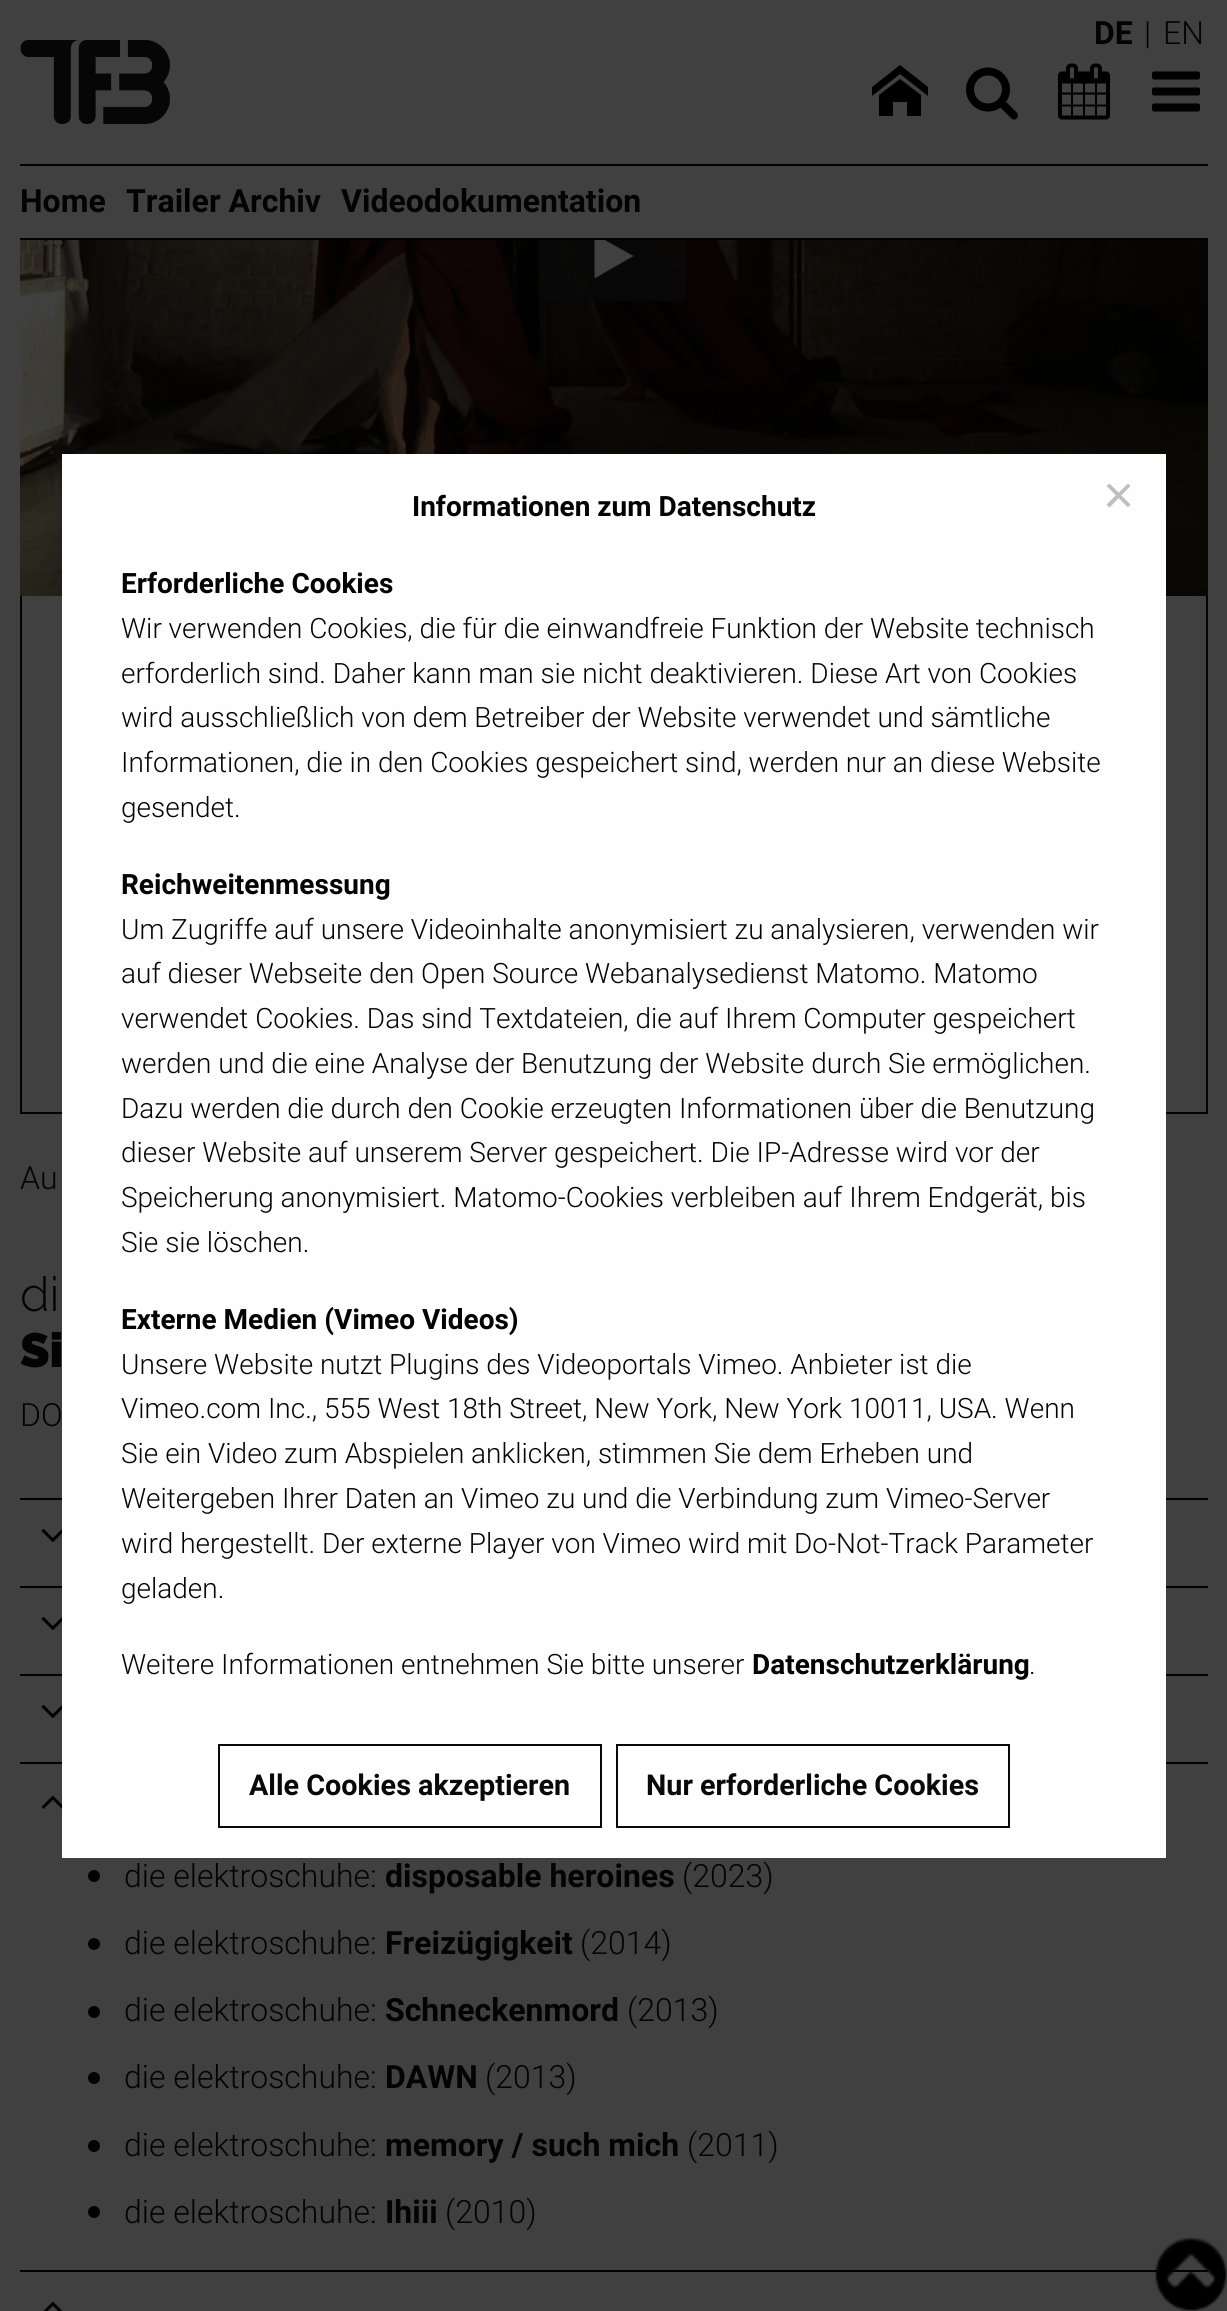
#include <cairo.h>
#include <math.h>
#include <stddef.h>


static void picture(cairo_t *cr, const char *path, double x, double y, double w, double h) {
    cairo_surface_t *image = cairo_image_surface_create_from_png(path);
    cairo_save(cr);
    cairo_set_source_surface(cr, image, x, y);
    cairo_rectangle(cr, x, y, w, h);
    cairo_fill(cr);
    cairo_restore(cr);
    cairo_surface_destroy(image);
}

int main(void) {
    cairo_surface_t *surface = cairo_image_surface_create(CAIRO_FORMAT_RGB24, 1227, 2311);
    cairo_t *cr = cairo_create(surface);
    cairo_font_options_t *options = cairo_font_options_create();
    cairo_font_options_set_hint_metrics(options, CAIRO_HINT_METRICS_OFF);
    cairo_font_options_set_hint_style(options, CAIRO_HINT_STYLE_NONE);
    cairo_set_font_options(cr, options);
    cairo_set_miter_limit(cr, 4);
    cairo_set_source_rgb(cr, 0.251, 0.251, 0.251);
    cairo_paint(cr);
    cairo_select_font_face(cr, "Roboto", CAIRO_FONT_SLANT_NORMAL, CAIRO_FONT_WEIGHT_BOLD);
    cairo_set_font_size(cr, 32);
    cairo_set_source_rgb(cr, 0.012, 0.012, 0.012);
    cairo_move_to(cr, 1094, 44);
    cairo_show_text(cr, "DE");
    cairo_select_font_face(cr, "Roboto Light", CAIRO_FONT_SLANT_NORMAL, CAIRO_FONT_WEIGHT_NORMAL);
    cairo_move_to(cr, 1144, 44);
    cairo_show_text(cr, "|");
    cairo_move_to(cr, 1163, 44);
    cairo_show_text(cr, "EN");
    picture(cr, "img1.png", 20, 40, 150, 84);
    cairo_set_source_rgb(cr, 0, 0, 0);
    cairo_new_path(cr);
    cairo_move_to(cr, 928, 96);
    cairo_line_to(cr, 900, 74);
    cairo_line_to(cr, 872, 96);
    cairo_line_to(cr, 872, 87);
    cairo_line_to(cr, 900, 65);
    cairo_line_to(cr, 928, 87);
    cairo_close_path(cr);
    cairo_move_to(cr, 921, 95);
    cairo_line_to(cr, 921, 116);
    cairo_line_to(cr, 907, 116);
    cairo_line_to(cr, 907, 102);
    cairo_line_to(cr, 893, 102);
    cairo_line_to(cr, 893, 116);
    cairo_line_to(cr, 879, 116);
    cairo_line_to(cr, 879, 95);
    cairo_line_to(cr, 900, 79);
    cairo_close_path(cr);
    cairo_fill(cr);
    picture(cr, "img2.png", 966, 67, 52, 53);
    picture(cr, "img3.png", 1058, 63, 52, 57);
    picture(cr, "img4.png", 1152, 71, 48, 41);
    cairo_rectangle(cr, 20, 164, 1188, 2);
    cairo_fill(cr);
    cairo_select_font_face(cr, "Roboto", CAIRO_FONT_SLANT_NORMAL, CAIRO_FONT_WEIGHT_BOLD);
    cairo_set_source_rgb(cr, 0.012, 0.012, 0.012);
    cairo_move_to(cr, 20, 212);
    cairo_show_text(cr, "Home");
    cairo_move_to(cr, 126, 212);
    cairo_show_text(cr, "Trailer Archiv");
    cairo_move_to(cr, 341, 212);
    cairo_show_text(cr, "Videodokumentation");
    cairo_set_source_rgb(cr, 0, 0, 0);
    cairo_rectangle(cr, 20, 238, 1188, 2);
    cairo_fill(cr);
    picture(cr, "img5.png", 20, 240, 1188, 356);
    picture(cr, "img6.png", 539, 240, 147, 61);
    cairo_set_source_rgb(cr, 0.012, 0.012, 0.012);
    cairo_rectangle(cr, 1206, 596, 2, 518);
    cairo_fill(cr);
    cairo_rectangle(cr, 20, 1112, 1188, 2);
    cairo_fill(cr);
    cairo_rectangle(cr, 20, 596, 2, 518);
    cairo_fill(cr);
    cairo_select_font_face(cr, "Roboto Light", CAIRO_FONT_SLANT_NORMAL, CAIRO_FONT_WEIGHT_NORMAL);
    cairo_move_to(cr, 20, 1189);
    cairo_show_text(cr, "Au");
    cairo_select_font_face(cr, "Raleway Light", CAIRO_FONT_SLANT_NORMAL, CAIRO_FONT_WEIGHT_NORMAL);
    cairo_set_font_size(cr, 48);
    cairo_move_to(cr, 20, 1311);
    cairo_show_text(cr, "di");
    cairo_select_font_face(cr, "Raleway Black", CAIRO_FONT_SLANT_NORMAL, CAIRO_FONT_WEIGHT_NORMAL);
    cairo_move_to(cr, 20, 1367);
    cairo_show_text(cr, "Si");
    cairo_select_font_face(cr, "Roboto Light", CAIRO_FONT_SLANT_NORMAL, CAIRO_FONT_WEIGHT_NORMAL);
    cairo_set_font_size(cr, 32);
    cairo_move_to(cr, 20, 1426);
    cairo_show_text(cr, "DO");
    cairo_set_source_rgb(cr, 0, 0, 0);
    cairo_rectangle(cr, 20, 1498, 1188, 2);
    cairo_fill(cr);
    picture(cr, "img7.png", 41, 1529, 21, 14);
    cairo_rectangle(cr, 20, 1586, 1188, 2);
    cairo_fill(cr);
    picture(cr, "img7.png", 41, 1617, 21, 14);
    cairo_rectangle(cr, 20, 1674, 1188, 2);
    cairo_fill(cr);
    picture(cr, "img7.png", 41, 1705, 21, 14);
    cairo_rectangle(cr, 20, 1762, 1188, 2);
    cairo_fill(cr);
    picture(cr, "img8.png", 41, 1795, 21, 14);
    cairo_set_source_rgb(cr, 0.012, 0.012, 0.012);
    cairo_arc(cr, 94, 1876, 6, 0, 2 * M_PI);
    cairo_fill(cr);
    cairo_move_to(cr, 124, 1887);
    cairo_show_text(cr, "die elektroschuhe:");
    cairo_select_font_face(cr, "Roboto", CAIRO_FONT_SLANT_NORMAL, CAIRO_FONT_WEIGHT_BOLD);
    cairo_move_to(cr, 385, 1887);
    cairo_show_text(cr, "disposable heroines");
    cairo_select_font_face(cr, "Roboto Light", CAIRO_FONT_SLANT_NORMAL, CAIRO_FONT_WEIGHT_NORMAL);
    cairo_move_to(cr, 682, 1887);
    cairo_show_text(cr, "(2023)");
    cairo_new_path(cr);
    cairo_arc(cr, 94, 1944, 6, 0, 2 * M_PI);
    cairo_fill(cr);
    cairo_move_to(cr, 124, 1954);
    cairo_show_text(cr, "die elektroschuhe:");
    cairo_select_font_face(cr, "Roboto", CAIRO_FONT_SLANT_NORMAL, CAIRO_FONT_WEIGHT_BOLD);
    cairo_move_to(cr, 385, 1954);
    cairo_show_text(cr, "Freizügigkeit");
    cairo_select_font_face(cr, "Roboto Light", CAIRO_FONT_SLANT_NORMAL, CAIRO_FONT_WEIGHT_NORMAL);
    cairo_move_to(cr, 580, 1954);
    cairo_show_text(cr, "(2014)");
    cairo_new_path(cr);
    cairo_arc(cr, 94, 2012, 6, 0, 2 * M_PI);
    cairo_fill(cr);
    cairo_move_to(cr, 124, 2021);
    cairo_show_text(cr, "die elektroschuhe:");
    cairo_select_font_face(cr, "Roboto", CAIRO_FONT_SLANT_NORMAL, CAIRO_FONT_WEIGHT_BOLD);
    cairo_move_to(cr, 385, 2021);
    cairo_show_text(cr, "Schneckenmord");
    cairo_select_font_face(cr, "Roboto Light", CAIRO_FONT_SLANT_NORMAL, CAIRO_FONT_WEIGHT_NORMAL);
    cairo_move_to(cr, 627, 2021);
    cairo_show_text(cr, "(2013)");
    cairo_new_path(cr);
    cairo_arc(cr, 94, 2078, 6, 0, 2 * M_PI);
    cairo_fill(cr);
    cairo_move_to(cr, 124, 2088);
    cairo_show_text(cr, "die elektroschuhe:");
    cairo_select_font_face(cr, "Roboto", CAIRO_FONT_SLANT_NORMAL, CAIRO_FONT_WEIGHT_BOLD);
    cairo_move_to(cr, 385, 2088);
    cairo_show_text(cr, "DAWN");
    cairo_select_font_face(cr, "Roboto Light", CAIRO_FONT_SLANT_NORMAL, CAIRO_FONT_WEIGHT_NORMAL);
    cairo_move_to(cr, 485, 2088);
    cairo_show_text(cr, "(2013)");
    cairo_new_path(cr);
    cairo_arc(cr, 94, 2146, 6, 0, 2 * M_PI);
    cairo_fill(cr);
    cairo_move_to(cr, 124, 2156);
    cairo_show_text(cr, "die elektroschuhe:");
    cairo_select_font_face(cr, "Roboto", CAIRO_FONT_SLANT_NORMAL, CAIRO_FONT_WEIGHT_BOLD);
    cairo_move_to(cr, 385, 2156);
    cairo_show_text(cr, "memory / such mich");
    cairo_select_font_face(cr, "Roboto Light", CAIRO_FONT_SLANT_NORMAL, CAIRO_FONT_WEIGHT_NORMAL);
    cairo_move_to(cr, 687, 2156);
    cairo_show_text(cr, "(2011)");
    cairo_new_path(cr);
    cairo_arc(cr, 94, 2212, 6, 0, 2 * M_PI);
    cairo_fill(cr);
    cairo_move_to(cr, 124, 2223);
    cairo_show_text(cr, "die elektroschuhe:");
    cairo_select_font_face(cr, "Roboto", CAIRO_FONT_SLANT_NORMAL, CAIRO_FONT_WEIGHT_BOLD);
    cairo_move_to(cr, 385, 2223);
    cairo_show_text(cr, "Ihiii");
    cairo_select_font_face(cr, "Roboto Light", CAIRO_FONT_SLANT_NORMAL, CAIRO_FONT_WEIGHT_NORMAL);
    cairo_move_to(cr, 445, 2223);
    cairo_show_text(cr, "(2010)");
    cairo_set_source_rgb(cr, 0, 0, 0);
    cairo_rectangle(cr, 20, 2270, 1188, 2);
    cairo_fill(cr);
    picture(cr, "img9.png", 43, 2301, 20, 10);
    picture(cr, "img10.png", 1155, 2238, 72, 73);
    cairo_set_source_rgb(cr, 0.996, 0.996, 0.996);
    cairo_rectangle(cr, 62, 454, 1104, 1404);
    cairo_fill(cr);
    cairo_select_font_face(cr, "Roboto", CAIRO_FONT_SLANT_NORMAL, CAIRO_FONT_WEIGHT_BOLD);
    cairo_set_font_size(cr, 28);
    cairo_set_source_rgb(cr, 0.012, 0.012, 0.012);
    cairo_move_to(cr, 412, 516);
    cairo_show_text(cr, "Informationen zum Datenschutz");
    cairo_move_to(cr, 121, 593);
    cairo_show_text(cr, "Erforderliche Cookies");
    cairo_select_font_face(cr, "Roboto Light", CAIRO_FONT_SLANT_NORMAL, CAIRO_FONT_WEIGHT_NORMAL);
    cairo_move_to(cr, 121, 638);
    cairo_show_text(cr, "Wir verwenden Cookies, die für die einwandfreie Funktion der Website technisch");
    cairo_move_to(cr, 121, 683);
    cairo_show_text(cr, "erforderlich sind. Daher kann man sie nicht deaktivieren. Diese Art von Cookies");
    cairo_move_to(cr, 121, 727);
    cairo_show_text(cr, "wird ausschließlich von dem Betreiber der Website verwendet und sämtliche");
    cairo_move_to(cr, 121, 772);
    cairo_show_text(cr, "Informationen, die in den Cookies gespeichert sind, werden nur an diese Website");
    cairo_move_to(cr, 121, 817);
    cairo_show_text(cr, "gesendet.");
    cairo_select_font_face(cr, "Roboto", CAIRO_FONT_SLANT_NORMAL, CAIRO_FONT_WEIGHT_BOLD);
    cairo_move_to(cr, 121, 894);
    cairo_show_text(cr, "Reichweitenmessung");
    cairo_select_font_face(cr, "Roboto Light", CAIRO_FONT_SLANT_NORMAL, CAIRO_FONT_WEIGHT_NORMAL);
    cairo_move_to(cr, 121, 939);
    cairo_show_text(cr, "Um Zugriffe auf unsere Videoinhalte anonymisiert zu analysieren, verwenden wir");
    cairo_move_to(cr, 121, 983);
    cairo_show_text(cr, "auf dieser Webseite den Open Source Webanalysedienst Matomo. Matomo");
    cairo_move_to(cr, 121, 1028);
    cairo_show_text(cr, "verwendet Cookies. Das sind Textdateien, die auf Ihrem Computer gespeichert");
    cairo_move_to(cr, 121, 1073);
    cairo_show_text(cr, "werden und die eine Analyse der Benutzung der Website durch Sie ermöglichen.");
    cairo_move_to(cr, 121, 1118);
    cairo_show_text(cr, "Dazu werden die durch den Cookie erzeugten Informationen über die Benutzung");
    cairo_move_to(cr, 121, 1162);
    cairo_show_text(cr, "dieser Website auf unserem Server gespeichert. Die IP-Adresse wird vor der");
    cairo_move_to(cr, 121, 1207);
    cairo_show_text(cr, "Speicherung anonymisiert. Matomo-Cookies verbleiben auf Ihrem Endgerät, bis");
    cairo_move_to(cr, 121, 1252);
    cairo_show_text(cr, "Sie sie löschen.");
    cairo_select_font_face(cr, "Roboto", CAIRO_FONT_SLANT_NORMAL, CAIRO_FONT_WEIGHT_BOLD);
    cairo_move_to(cr, 121, 1329);
    cairo_show_text(cr, "Externe Medien (Vimeo Videos)");
    cairo_select_font_face(cr, "Roboto Light", CAIRO_FONT_SLANT_NORMAL, CAIRO_FONT_WEIGHT_NORMAL);
    cairo_move_to(cr, 121, 1374);
    cairo_show_text(cr, "Unsere Website nutzt Plugins des Videoportals Vimeo. Anbieter ist die");
    cairo_move_to(cr, 121, 1418);
    cairo_show_text(cr, "Vimeo.com Inc., 555 West 18th Street, New York, New York 10011, USA. Wenn");
    cairo_move_to(cr, 121, 1463);
    cairo_show_text(cr, "Sie ein Video zum Abspielen anklicken, stimmen Sie dem Erheben und");
    cairo_move_to(cr, 121, 1508);
    cairo_show_text(cr, "Weitergeben Ihrer Daten an Vimeo zu und die Verbindung zum Vimeo-Server");
    cairo_move_to(cr, 121, 1553);
    cairo_show_text(cr, "wird hergestellt. Der externe Player von Vimeo wird mit Do-Not-Track Parameter");
    cairo_move_to(cr, 121, 1598);
    cairo_show_text(cr, "geladen.");
    cairo_move_to(cr, 121, 1674);
    cairo_show_text(cr, "Weitere Informationen entnehmen Sie bitte unserer");
    cairo_select_font_face(cr, "Roboto", CAIRO_FONT_SLANT_NORMAL, CAIRO_FONT_WEIGHT_BOLD);
    cairo_move_to(cr, 752, 1674);
    cairo_show_text(cr, "Datenschutzerklärung");
    cairo_select_font_face(cr, "Roboto Light", CAIRO_FONT_SLANT_NORMAL, CAIRO_FONT_WEIGHT_NORMAL);
    cairo_move_to(cr, 1029, 1674);
    cairo_show_text(cr, ".");
    cairo_set_source_rgb(cr, 0.749, 0.749, 0.749);
    cairo_new_path(cr);
    cairo_move_to(cr, 1128, 483.5);
    cairo_line_to(cr, 1130.5, 486);
    cairo_line_to(cr, 1109.5, 507.5);
    cairo_line_to(cr, 1106.5, 504.5);
    cairo_close_path(cr);
    cairo_fill(cr);
    cairo_new_path(cr);
    cairo_move_to(cr, 1106.5, 486);
    cairo_line_to(cr, 1109.5, 483.5);
    cairo_line_to(cr, 1130.5, 504.5);
    cairo_line_to(cr, 1128, 507.5);
    cairo_close_path(cr);
    cairo_fill(cr);
    cairo_rectangle(cr, 219, 1745, 382, 82);
    cairo_set_source_rgb(cr, 0.039, 0.039, 0.039);
    cairo_stroke(cr);
    cairo_select_font_face(cr, "Roboto", CAIRO_FONT_SLANT_NORMAL, CAIRO_FONT_WEIGHT_BOLD);
    cairo_set_font_size(cr, 28.75);
    cairo_move_to(cr, 249, 1795);
    cairo_show_text(cr, "Alle Cookies akzeptieren");
    cairo_rectangle(cr, 617, 1745, 392, 82);
    cairo_stroke(cr);
    cairo_move_to(cr, 646, 1795);
    cairo_show_text(cr, "Nur erforderliche Cookies");
    cairo_surface_write_to_png(surface, "page.png");
    cairo_font_options_destroy(options);
    cairo_destroy(cr);
    cairo_surface_destroy(surface);
    return 0;
}
